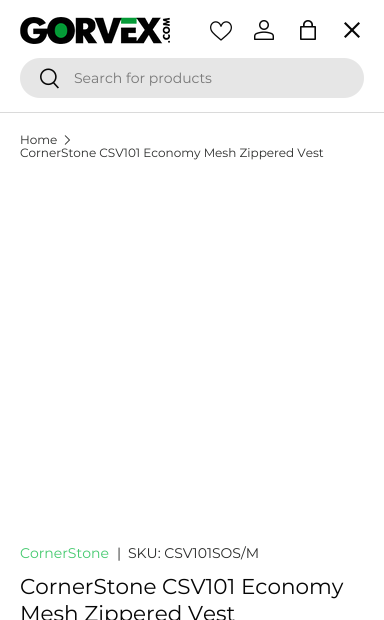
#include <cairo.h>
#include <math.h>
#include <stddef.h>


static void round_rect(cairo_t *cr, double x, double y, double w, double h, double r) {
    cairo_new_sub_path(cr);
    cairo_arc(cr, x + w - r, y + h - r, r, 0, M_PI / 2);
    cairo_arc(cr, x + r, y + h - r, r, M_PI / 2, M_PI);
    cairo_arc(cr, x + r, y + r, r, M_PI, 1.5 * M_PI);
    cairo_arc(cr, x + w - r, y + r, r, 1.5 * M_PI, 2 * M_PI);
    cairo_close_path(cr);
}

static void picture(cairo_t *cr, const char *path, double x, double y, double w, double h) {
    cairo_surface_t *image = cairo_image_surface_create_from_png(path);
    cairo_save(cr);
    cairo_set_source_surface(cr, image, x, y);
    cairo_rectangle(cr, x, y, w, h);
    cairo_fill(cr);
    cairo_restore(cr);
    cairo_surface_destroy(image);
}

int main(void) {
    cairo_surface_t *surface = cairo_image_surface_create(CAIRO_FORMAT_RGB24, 384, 620);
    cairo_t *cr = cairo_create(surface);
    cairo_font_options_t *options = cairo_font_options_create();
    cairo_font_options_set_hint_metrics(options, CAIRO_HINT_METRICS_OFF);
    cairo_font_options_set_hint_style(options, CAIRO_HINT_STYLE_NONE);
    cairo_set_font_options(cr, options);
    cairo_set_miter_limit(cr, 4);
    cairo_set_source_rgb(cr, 1, 1, 1);
    cairo_paint(cr);
    cairo_set_source_rgb(cr, 0.855, 0.855, 0.855);
    cairo_rectangle(cr, 0, 112, 384, 1);
    cairo_fill(cr);
    picture(cr, "img1.png", 20, 17, 150, 27);
    picture(cr, "img2.png", 210, 21, 22, 20);
    picture(cr, "img3.png", 254, 20, 20, 20);
    picture(cr, "img4.png", 300, 20, 16, 20);
    cairo_set_source_rgb(cr, 0.027, 0.027, 0.027);
    cairo_new_path(cr);
    cairo_move_to(cr, 345.5, 22);
    cairo_line_to(cr, 360, 36.5);
    cairo_line_to(cr, 358.5, 38);
    cairo_line_to(cr, 344, 23.5);
    cairo_close_path(cr);
    cairo_fill(cr);
    cairo_new_path(cr);
    cairo_move_to(cr, 344, 36.5);
    cairo_line_to(cr, 358.5, 22);
    cairo_line_to(cr, 360, 23.5);
    cairo_line_to(cr, 345.5, 38);
    cairo_close_path(cr);
    cairo_fill(cr);
    cairo_set_source_rgb(cr, 0.902, 0.902, 0.902);
    round_rect(cr, 20, 58, 344, 40, 20);
    cairo_fill(cr);
    picture(cr, "img5.png", 40, 68, 19, 21);
    cairo_select_font_face(cr, "Montserrat", CAIRO_FONT_SLANT_NORMAL, CAIRO_FONT_WEIGHT_NORMAL);
    cairo_set_font_size(cr, 14);
    cairo_set_source_rgb(cr, 0.467, 0.467, 0.467);
    cairo_move_to(cr, 74, 83);
    cairo_show_text(cr, "Search for products");
    cairo_set_font_size(cr, 12);
    cairo_set_source_rgb(cr, 0.165, 0.169, 0.165);
    cairo_move_to(cr, 20, 144);
    cairo_show_text(cr, "Home");
    cairo_new_path(cr);
    cairo_move_to(cr, 65, 135.5);
    cairo_line_to(cr, 69.5, 140);
    cairo_line_to(cr, 65, 144.5);
    cairo_set_line_width(cr, 0.9);
    cairo_stroke(cr);
    cairo_move_to(cr, 20, 157);
    cairo_show_text(cr, "CornerStone CSV101 Economy Mesh Zippered Vest");
    cairo_set_font_size(cr, 14);
    cairo_set_source_rgb(cr, 0.267, 0.788, 0.431);
    cairo_move_to(cr, 20, 558);
    cairo_show_text(cr, "CornerStone");
    cairo_set_source_rgb(cr, 0.165, 0.169, 0.165);
    cairo_move_to(cr, 117, 558);
    cairo_show_text(cr, "|");
    cairo_move_to(cr, 128, 558);
    cairo_show_text(cr, "SKU: CSV101SOS/M");
    cairo_set_font_size(cr, 21.5);
    cairo_set_source_rgb(cr, 0.027, 0.027, 0.027);
    cairo_move_to(cr, 20, 594);
    cairo_show_text(cr, "CornerStone CSV101 Economy");
    cairo_move_to(cr, 20, 621);
    cairo_show_text(cr, "Mesh Zippered Vest");
    cairo_surface_write_to_png(surface, "page.png");
    cairo_font_options_destroy(options);
    cairo_destroy(cr);
    cairo_surface_destroy(surface);
    return 0;
}
